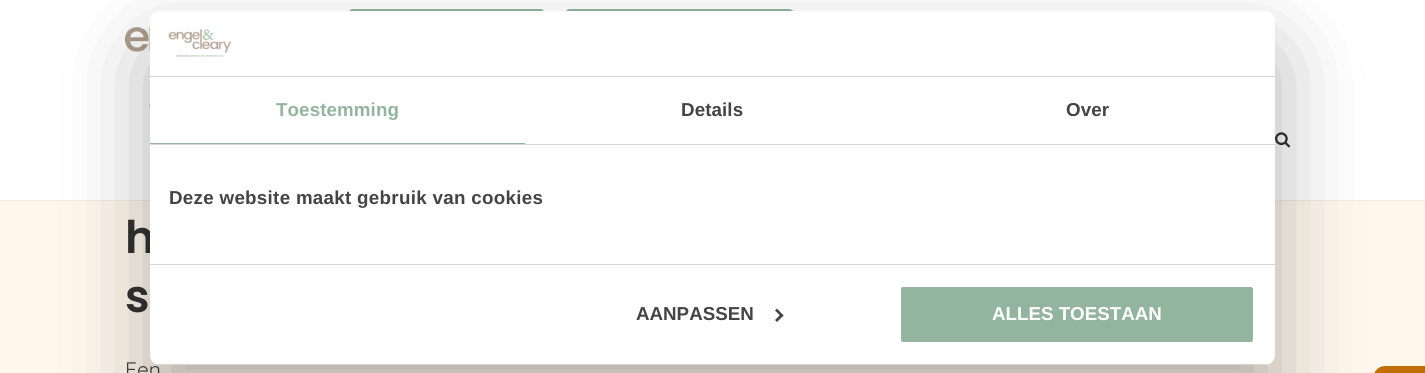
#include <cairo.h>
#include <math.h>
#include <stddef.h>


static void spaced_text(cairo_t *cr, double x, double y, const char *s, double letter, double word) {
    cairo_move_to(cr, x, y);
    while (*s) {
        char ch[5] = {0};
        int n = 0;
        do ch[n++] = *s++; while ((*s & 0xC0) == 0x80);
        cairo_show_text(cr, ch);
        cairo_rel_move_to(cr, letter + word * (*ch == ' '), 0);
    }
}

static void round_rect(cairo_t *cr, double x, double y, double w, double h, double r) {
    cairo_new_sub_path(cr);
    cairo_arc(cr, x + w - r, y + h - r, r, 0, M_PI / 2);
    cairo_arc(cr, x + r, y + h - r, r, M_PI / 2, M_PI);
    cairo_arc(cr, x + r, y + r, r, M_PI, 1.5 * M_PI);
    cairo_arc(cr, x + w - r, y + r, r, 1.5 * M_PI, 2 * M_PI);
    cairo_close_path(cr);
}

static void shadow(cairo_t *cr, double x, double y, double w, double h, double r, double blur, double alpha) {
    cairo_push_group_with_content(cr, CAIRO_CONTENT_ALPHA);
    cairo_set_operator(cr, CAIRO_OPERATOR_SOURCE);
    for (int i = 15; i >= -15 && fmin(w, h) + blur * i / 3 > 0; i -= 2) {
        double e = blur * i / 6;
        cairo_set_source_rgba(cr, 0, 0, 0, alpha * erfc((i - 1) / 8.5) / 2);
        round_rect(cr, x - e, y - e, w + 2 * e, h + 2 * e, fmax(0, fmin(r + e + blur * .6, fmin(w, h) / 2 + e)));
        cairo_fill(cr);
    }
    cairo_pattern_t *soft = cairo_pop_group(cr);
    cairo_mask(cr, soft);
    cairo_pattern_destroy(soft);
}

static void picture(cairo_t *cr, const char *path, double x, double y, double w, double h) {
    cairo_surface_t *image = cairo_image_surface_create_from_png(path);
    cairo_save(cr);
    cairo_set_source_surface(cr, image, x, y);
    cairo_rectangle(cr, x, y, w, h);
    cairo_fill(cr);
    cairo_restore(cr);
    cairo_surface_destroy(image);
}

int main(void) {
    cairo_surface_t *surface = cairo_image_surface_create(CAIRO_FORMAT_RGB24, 1425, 373);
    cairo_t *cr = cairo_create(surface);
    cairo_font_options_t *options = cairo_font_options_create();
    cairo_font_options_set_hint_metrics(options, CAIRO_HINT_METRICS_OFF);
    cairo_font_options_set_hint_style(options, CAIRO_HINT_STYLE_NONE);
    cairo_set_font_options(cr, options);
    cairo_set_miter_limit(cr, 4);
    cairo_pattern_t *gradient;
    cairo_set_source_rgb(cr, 1, 0.965, 0.925);
    cairo_paint(cr);
    cairo_rectangle(cr, -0.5, -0.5, 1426, 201);
    cairo_set_source_rgb(cr, 0.949, 0.918, 0.878);
    cairo_set_line_width(cr, 1);
    cairo_stroke(cr);
    cairo_set_source_rgb(cr, 1, 1, 1);
    cairo_rectangle(cr, 0, 0, 1425, 200);
    cairo_fill(cr);
    picture(cr, "img1.png", 125, 27, 25, 81);
    cairo_set_source_rgb(cr, 0.573, 0.71, 0.62);
    round_rect(cr, 348, 9, 197, 51, 5);
    cairo_fill(cr);
    round_rect(cr, 565, 9, 229, 51, 5);
    cairo_fill(cr);
    picture(cr, "img2.png", 1275, 132, 16, 16);
    cairo_select_font_face(cr, "Poppins SemiBold", CAIRO_FONT_SLANT_NORMAL, CAIRO_FONT_WEIGHT_NORMAL);
    cairo_set_font_size(cr, 45);
    cairo_set_source_rgb(cr, 0.2, 0.2, 0.2);
    cairo_move_to(cr, 125, 253);
    cairo_show_text(cr, "h");
    cairo_move_to(cr, 125, 312);
    cairo_show_text(cr, "s");
    cairo_select_font_face(cr, "Quicksand", CAIRO_FONT_SLANT_NORMAL, CAIRO_FONT_WEIGHT_NORMAL);
    cairo_set_font_size(cr, 21);
    cairo_set_source_rgb(cr, 0.267, 0.267, 0.267);
    cairo_move_to(cr, 125, 377);
    cairo_show_text(cr, "Een");
    cairo_set_source_rgb(cr, 0.753, 0.435, 0);
    cairo_new_path(cr);
    cairo_move_to(cr, 1373, 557);
    cairo_line_to(cr, 1373, 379);
    cairo_curve_to(cr, 1373, 372, 1378, 366, 1385, 366);
    cairo_line_to(cr, 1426, 366);
    cairo_line_to(cr, 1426, 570);
    cairo_line_to(cr, 1385, 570);
    cairo_curve_to(cr, 1378, 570, 1373, 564, 1373, 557);
    cairo_close_path(cr);
    cairo_fill(cr);
    cairo_set_source_rgb(cr, 0, 0, 0);
    shadow(cr, 150, 51, 1125, 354, 10, 42.5, 0.3);
    cairo_set_source_rgb(cr, 1, 1, 1);
    round_rect(cr, 150, 11, 1125, 354, 10);
    cairo_fill(cr);
    cairo_set_source_rgb(cr, 0.839, 0.839, 0.839);
    cairo_rectangle(cr, 150, 76, 1125, 1);
    cairo_fill(cr);
    picture(cr, "img3.png", 168, 29, 63, 28);
    cairo_rectangle(cr, 150, 144, 1125, 1);
    cairo_fill(cr);
    cairo_set_source_rgb(cr, 0.576, 0.71, 0.624);
    cairo_rectangle(cr, 150, 143, 375, 1);
    cairo_fill(cr);
    cairo_select_font_face(cr, "Liberation Sans", CAIRO_FONT_SLANT_NORMAL, CAIRO_FONT_WEIGHT_BOLD);
    cairo_set_font_size(cr, 18.75);
    spaced_text(cr, 276, 116, "Toestemming", 0.1, 0);
    cairo_set_source_rgb(cr, 0.267, 0.267, 0.267);
    spaced_text(cr, 681, 116, "Details", 0.1, 0);
    spaced_text(cr, 1066, 116, "Over", 0.1, 0);
    cairo_set_source_rgb(cr, 0.839, 0.839, 0.839);
    cairo_rectangle(cr, 150, 264, 1125, 1);
    cairo_fill(cr);
    cairo_set_source_rgb(cr, 0.267, 0.267, 0.267);
    spaced_text(cr, 169, 204, "Deze website maakt gebruik van cookies", 0.3, 0);
    gradient = cairo_pattern_create_linear(704, 263, 704, 204);
    cairo_pattern_add_color_stop_rgba(gradient, 0, 1, 1, 1, 1);
    cairo_pattern_add_color_stop_rgba(gradient, 0.5, 1, 1, 1, 0.8);
    cairo_pattern_add_color_stop_rgba(gradient, 1, 1, 1, 1, 0);
    cairo_set_source(cr, gradient);
    cairo_pattern_destroy(gradient);
    cairo_rectangle(cr, 358, 205, 9, 3);
    cairo_fill(cr);
    cairo_save(cr);
    round_rect(cr, 150, 11, 1125, 354, 10);
    cairo_clip(cr);
    cairo_set_source_rgb(cr, 0.839, 0.839, 0.839);
    cairo_rectangle(cr, 150, 364, 1125, 1);
    cairo_fill(cr);
    cairo_restore(cr);
    cairo_set_source_rgb(cr, 0.267, 0.267, 0.267);
    cairo_move_to(cr, 636, 320);
    cairo_show_text(cr, "AANPASSEN");
    cairo_new_path(cr);
    cairo_move_to(cr, 777, 308.5);
    cairo_line_to(cr, 783.5, 315.5);
    cairo_line_to(cr, 781.5, 317);
    cairo_line_to(cr, 775, 310.5);
    cairo_close_path(cr);
    cairo_fill(cr);
    cairo_new_path(cr);
    cairo_move_to(cr, 781.5, 313.5);
    cairo_line_to(cr, 783.5, 315.5);
    cairo_line_to(cr, 777, 322);
    cairo_line_to(cr, 775, 320);
    cairo_close_path(cr);
    cairo_fill(cr);
    cairo_set_source_rgb(cr, 0.576, 0.71, 0.624);
    round_rect(cr, 899.5, 285.5, 355, 58, 3.5);
    cairo_fill_preserve(cr);
    cairo_set_source_rgb(cr, 1, 1, 1);
    cairo_set_line_width(cr, 3);
    cairo_stroke(cr);
    cairo_move_to(cr, 992, 320);
    cairo_show_text(cr, "ALLES TOESTAAN");
    cairo_surface_write_to_png(surface, "page.png");
    cairo_font_options_destroy(options);
    cairo_destroy(cr);
    cairo_surface_destroy(surface);
    return 0;
}
